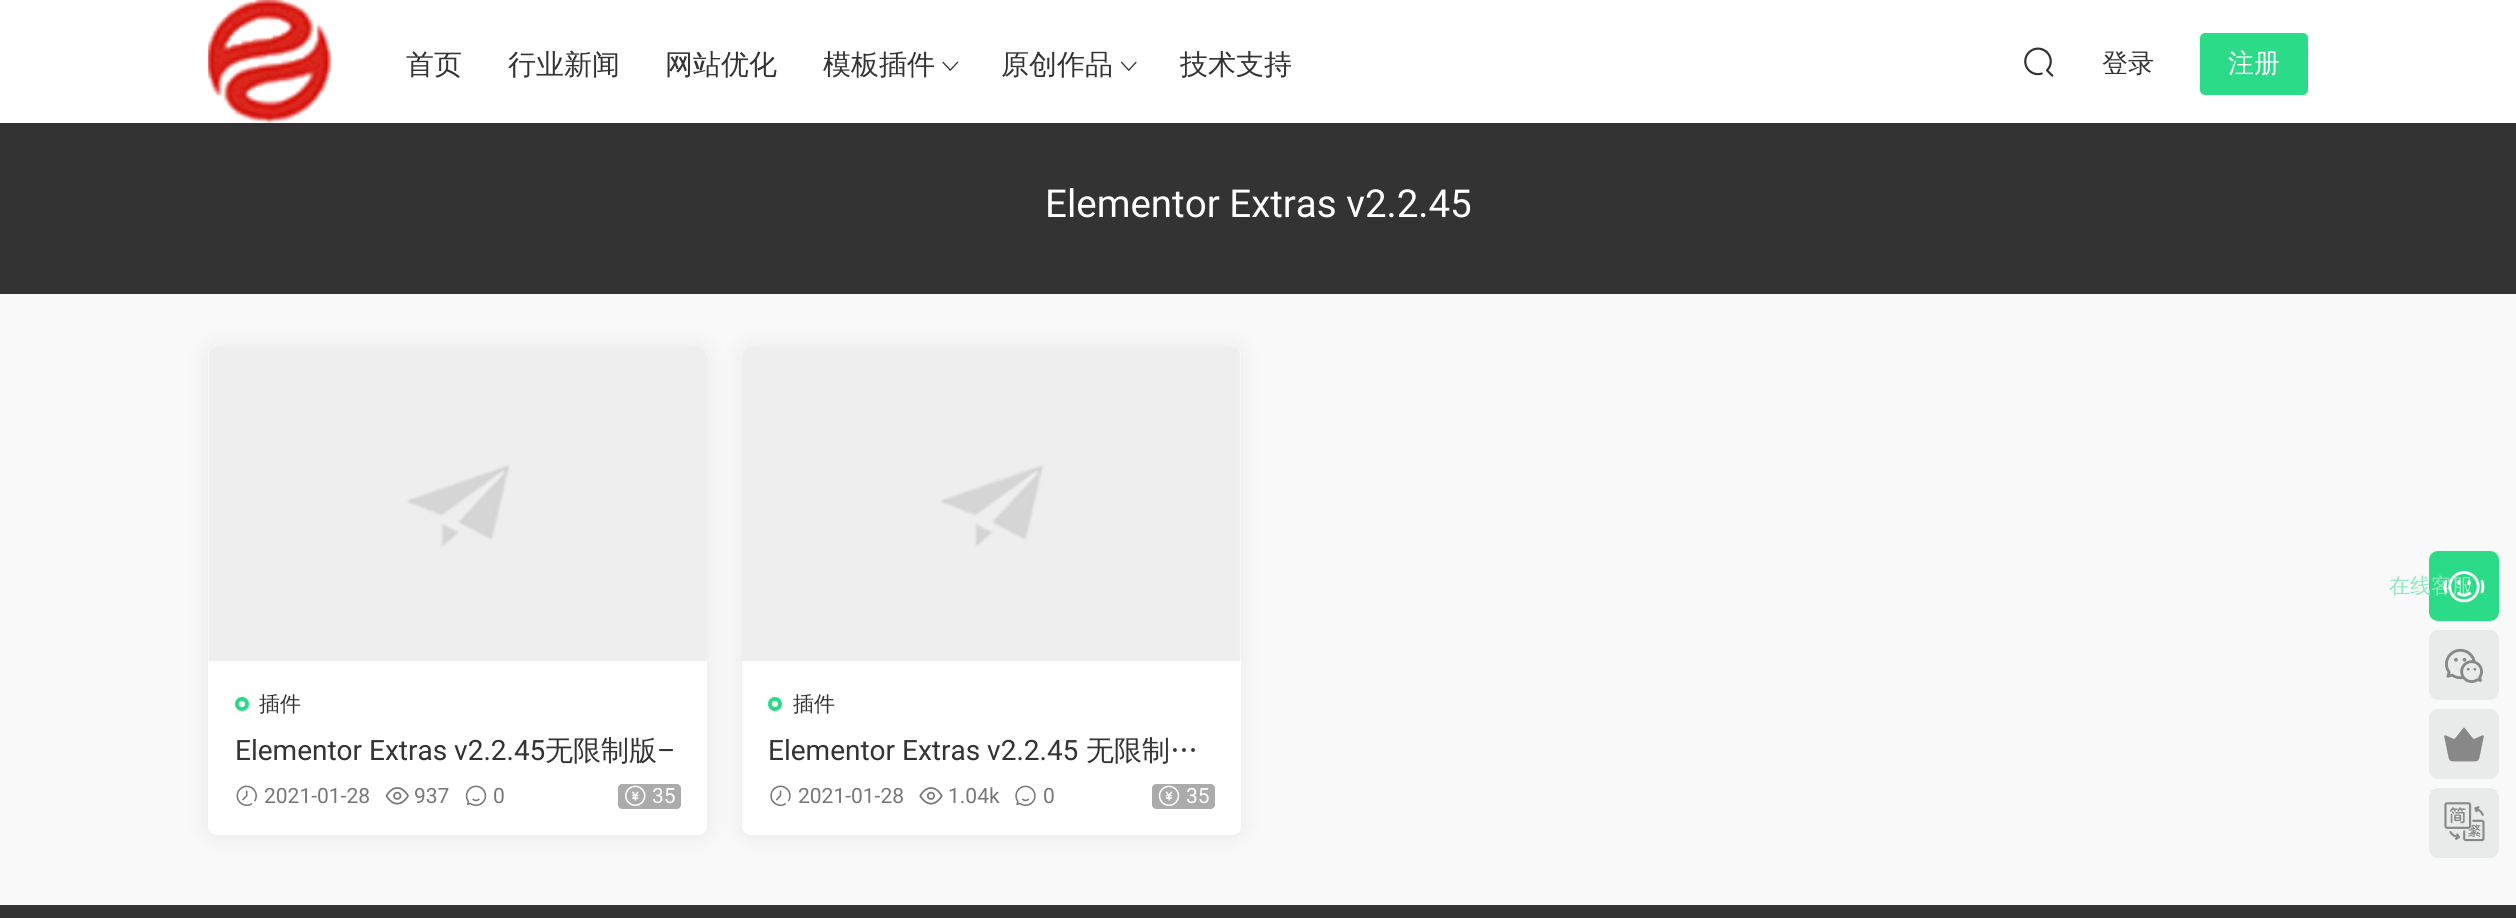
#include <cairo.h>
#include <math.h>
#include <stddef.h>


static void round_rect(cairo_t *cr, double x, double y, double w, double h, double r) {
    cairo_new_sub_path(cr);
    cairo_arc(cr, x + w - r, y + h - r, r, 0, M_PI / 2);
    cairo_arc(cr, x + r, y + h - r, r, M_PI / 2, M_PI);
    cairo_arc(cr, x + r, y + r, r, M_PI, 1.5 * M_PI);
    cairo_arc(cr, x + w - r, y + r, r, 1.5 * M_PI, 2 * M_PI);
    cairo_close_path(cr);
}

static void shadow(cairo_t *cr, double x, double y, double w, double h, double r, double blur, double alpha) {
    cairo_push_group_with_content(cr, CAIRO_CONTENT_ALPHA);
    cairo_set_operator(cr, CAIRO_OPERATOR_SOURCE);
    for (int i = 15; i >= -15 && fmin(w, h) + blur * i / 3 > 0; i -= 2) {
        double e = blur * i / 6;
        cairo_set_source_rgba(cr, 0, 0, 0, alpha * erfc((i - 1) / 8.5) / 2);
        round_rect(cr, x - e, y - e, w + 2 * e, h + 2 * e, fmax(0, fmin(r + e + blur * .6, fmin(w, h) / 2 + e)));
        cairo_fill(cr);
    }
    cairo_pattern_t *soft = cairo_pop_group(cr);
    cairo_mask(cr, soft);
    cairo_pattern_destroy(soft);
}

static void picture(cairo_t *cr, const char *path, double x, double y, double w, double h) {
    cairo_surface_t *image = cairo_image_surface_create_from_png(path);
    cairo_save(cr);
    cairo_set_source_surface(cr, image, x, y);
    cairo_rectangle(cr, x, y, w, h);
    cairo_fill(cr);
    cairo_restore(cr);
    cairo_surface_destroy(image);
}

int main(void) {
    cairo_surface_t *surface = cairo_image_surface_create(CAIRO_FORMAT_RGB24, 2516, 918);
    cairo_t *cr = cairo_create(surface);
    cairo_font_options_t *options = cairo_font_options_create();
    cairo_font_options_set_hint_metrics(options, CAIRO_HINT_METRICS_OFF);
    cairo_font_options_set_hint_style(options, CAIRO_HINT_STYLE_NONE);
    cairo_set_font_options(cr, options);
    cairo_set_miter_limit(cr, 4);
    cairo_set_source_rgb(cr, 0.976, 0.976, 0.976);
    cairo_paint(cr);
    cairo_set_source_rgb(cr, 0.2, 0.2, 0.2);
    cairo_rectangle(cr, 0, 123, 2516, 171);
    cairo_fill(cr);
    cairo_set_source_rgb(cr, 0, 0, 0);
    shadow(cr, 0, 2, 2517, 122, 0, 4.5, 0.1);
    cairo_set_source_rgb(cr, 1, 1, 1);
    cairo_rectangle(cr, 0, 0, 2516, 123);
    cairo_fill(cr);
    picture(cr, "img1.png", 208, 0, 123, 123);
    cairo_select_font_face(cr, "WenQuanYi Zen Hei Medium", CAIRO_FONT_SLANT_NORMAL, CAIRO_FONT_WEIGHT_NORMAL);
    cairo_set_font_size(cr, 28);
    cairo_set_source_rgb(cr, 0.2, 0.2, 0.2);
    cairo_move_to(cr, 406, 74);
    cairo_show_text(cr, "首页");
    cairo_move_to(cr, 508, 74);
    cairo_show_text(cr, "行业新闻");
    cairo_move_to(cr, 665, 74);
    cairo_show_text(cr, "网站优化");
    cairo_move_to(cr, 823, 74);
    cairo_show_text(cr, "模板插件");
    picture(cr, "img2.png", 942, 61, 17, 10);
    cairo_move_to(cr, 1001, 74);
    cairo_show_text(cr, "原创作品");
    picture(cr, "img3.png", 1120, 61, 17, 10);
    cairo_move_to(cr, 1180, 74);
    cairo_show_text(cr, "技术支持");
    picture(cr, "img4.png", 2024, 47, 30, 30);
    cairo_set_font_size(cr, 26);
    cairo_move_to(cr, 2102, 72);
    cairo_show_text(cr, "登录");
    cairo_set_source_rgb(cr, 0.173, 0.859, 0.529);
    round_rect(cr, 2200, 33, 108, 62, 5);
    cairo_fill(cr);
    cairo_set_source_rgb(cr, 1, 1, 1);
    cairo_move_to(cr, 2228, 72);
    cairo_show_text(cr, "注册");
    cairo_select_font_face(cr, "Roboto", CAIRO_FONT_SLANT_NORMAL, CAIRO_FONT_WEIGHT_NORMAL);
    cairo_set_font_size(cr, 38.5);
    cairo_move_to(cr, 1045, 217);
    cairo_show_text(cr, "Elementor Extras v2.2.45");
    cairo_set_source_rgb(cr, 0.173, 0.859, 0.529);
    round_rect(cr, 2429, 551, 70, 70, 9);
    cairo_fill(cr);
    cairo_select_font_face(cr, "WenQuanYi Zen Hei Medium", CAIRO_FONT_SLANT_NORMAL, CAIRO_FONT_WEIGHT_NORMAL);
    cairo_set_font_size(cr, 21);
    cairo_set_source_rgb(cr, 0.561, 0.914, 0.745);
    cairo_move_to(cr, 2389, 593);
    cairo_show_text(cr, "在线客服");
    picture(cr, "img5.png", 2443, 571, 42, 32);
    cairo_set_source_rgb(cr, 0.914, 0.918, 0.918);
    round_rect(cr, 2429, 630, 70, 70, 9);
    cairo_fill(cr);
    picture(cr, "img6.png", 2445, 648, 38, 35);
    round_rect(cr, 2429, 709, 70, 70, 9);
    cairo_fill(cr);
    picture(cr, "img7.png", 2444, 727, 40, 35);
    round_rect(cr, 2429, 788, 70, 70, 9);
    cairo_fill(cr);
    picture(cr, "img8.png", 2444, 802, 41, 40);
    cairo_set_source_rgb(cr, 0, 0, 0);
    shadow(cr, 208, 347, 499, 488, 9, 13, 0.07);
    cairo_set_source_rgb(cr, 1, 1, 1);
    round_rect(cr, 208, 347, 499, 488, 9);
    cairo_fill(cr);
    cairo_new_path(cr);
    cairo_move_to(cr, 217, 347);
    cairo_line_to(cr, 698, 347);
    cairo_curve_to(cr, 703, 347, 707, 351, 707, 356);
    cairo_line_to(cr, 707, 662);
    cairo_line_to(cr, 208, 662);
    cairo_line_to(cr, 208, 356);
    cairo_curve_to(cr, 208, 351, 212, 347, 217, 347);
    cairo_close_path(cr);
    cairo_fill(cr);
    picture(cr, "img9.png", 208, 347, 499, 314);
    cairo_arc(cr, 242, 704, 5, 0, 2 * M_PI);
    cairo_set_source_rgb(cr, 0.173, 0.859, 0.529);
    cairo_set_line_width(cr, 4);
    cairo_stroke(cr);
    cairo_set_source_rgb(cr, 0.2, 0.2, 0.2);
    cairo_move_to(cr, 259, 711);
    cairo_show_text(cr, "插件");
    cairo_select_font_face(cr, "Roboto", CAIRO_FONT_SLANT_NORMAL, CAIRO_FONT_WEIGHT_NORMAL);
    cairo_set_font_size(cr, 28);
    cairo_move_to(cr, 235, 760);
    cairo_show_text(cr, "Elementor Extras v2.2.45");
    cairo_select_font_face(cr, "WenQuanYi Zen Hei Medium", CAIRO_FONT_SLANT_NORMAL, CAIRO_FONT_WEIGHT_NORMAL);
    cairo_move_to(cr, 545, 760);
    cairo_show_text(cr, "无限制版");
    cairo_select_font_face(cr, "Roboto", CAIRO_FONT_SLANT_NORMAL, CAIRO_FONT_WEIGHT_NORMAL);
    cairo_move_to(cr, 657, 760);
    cairo_show_text(cr, "–");
    picture(cr, "img10.png", 236, 785, 21, 21);
    cairo_set_font_size(cr, 21);
    cairo_set_source_rgb(cr, 0.467, 0.467, 0.467);
    cairo_move_to(cr, 264, 803);
    cairo_show_text(cr, "2021-01-28");
    picture(cr, "img11.png", 385, 787, 24, 18);
    cairo_move_to(cr, 414, 803);
    cairo_show_text(cr, "937");
    picture(cr, "img12.png", 465, 785, 22, 21);
    cairo_move_to(cr, 493, 803);
    cairo_show_text(cr, "0");
    cairo_set_source_rgb(cr, 0.671, 0.671, 0.671);
    cairo_new_path(cr);
    cairo_move_to(cr, 622, 784);
    cairo_line_to(cr, 648, 784);
    cairo_line_to(cr, 648, 809);
    cairo_line_to(cr, 622, 809);
    cairo_curve_to(cr, 620, 809, 618, 807, 618, 805);
    cairo_line_to(cr, 618, 788);
    cairo_curve_to(cr, 618, 786, 620, 784, 622, 784);
    cairo_close_path(cr);
    cairo_fill(cr);
    picture(cr, "img13.png", 625, 785, 21, 21);
    cairo_new_path(cr);
    cairo_move_to(cr, 648, 784);
    cairo_line_to(cr, 677, 784);
    cairo_curve_to(cr, 679, 784, 681, 786, 681, 788);
    cairo_line_to(cr, 681, 805);
    cairo_curve_to(cr, 681, 807, 679, 809, 677, 809);
    cairo_line_to(cr, 648, 809);
    cairo_close_path(cr);
    cairo_fill(cr);
    cairo_set_source_rgb(cr, 1, 1, 1);
    cairo_move_to(cr, 652, 803);
    cairo_show_text(cr, "35");
    cairo_set_source_rgb(cr, 0, 0, 0);
    shadow(cr, 742, 347, 499, 488, 9, 13, 0.07);
    cairo_set_source_rgb(cr, 1, 1, 1);
    round_rect(cr, 742, 347, 499, 488, 9);
    cairo_fill(cr);
    cairo_new_path(cr);
    cairo_move_to(cr, 751, 347);
    cairo_line_to(cr, 1232, 347);
    cairo_curve_to(cr, 1237, 347, 1241, 351, 1241, 356);
    cairo_line_to(cr, 1241, 662);
    cairo_line_to(cr, 742, 662);
    cairo_line_to(cr, 742, 356);
    cairo_curve_to(cr, 742, 351, 746, 347, 751, 347);
    cairo_close_path(cr);
    cairo_fill(cr);
    picture(cr, "img14.png", 742, 347, 499, 314);
    cairo_arc(cr, 775, 704, 5, 0, 2 * M_PI);
    cairo_set_source_rgb(cr, 0.173, 0.859, 0.529);
    cairo_stroke(cr);
    cairo_select_font_face(cr, "WenQuanYi Zen Hei Medium", CAIRO_FONT_SLANT_NORMAL, CAIRO_FONT_WEIGHT_NORMAL);
    cairo_set_source_rgb(cr, 0.2, 0.2, 0.2);
    cairo_move_to(cr, 793, 711);
    cairo_show_text(cr, "插件");
    cairo_select_font_face(cr, "Roboto", CAIRO_FONT_SLANT_NORMAL, CAIRO_FONT_WEIGHT_NORMAL);
    cairo_set_font_size(cr, 28);
    cairo_move_to(cr, 768, 760);
    cairo_show_text(cr, "Elementor Extras v2.2.45");
    cairo_select_font_face(cr, "WenQuanYi Zen Hei Medium", CAIRO_FONT_SLANT_NORMAL, CAIRO_FONT_WEIGHT_NORMAL);
    cairo_move_to(cr, 1086, 760);
    cairo_show_text(cr, "无限制…");
    picture(cr, "img15.png", 770, 785, 21, 21);
    cairo_select_font_face(cr, "Roboto", CAIRO_FONT_SLANT_NORMAL, CAIRO_FONT_WEIGHT_NORMAL);
    cairo_set_font_size(cr, 21);
    cairo_set_source_rgb(cr, 0.467, 0.467, 0.467);
    cairo_move_to(cr, 798, 803);
    cairo_show_text(cr, "2021-01-28");
    picture(cr, "img16.png", 919, 787, 24, 18);
    cairo_move_to(cr, 948, 803);
    cairo_show_text(cr, "1.04k");
    picture(cr, "img17.png", 1015, 785, 21, 21);
    cairo_move_to(cr, 1043, 803);
    cairo_show_text(cr, "0");
    cairo_set_source_rgb(cr, 0.671, 0.671, 0.671);
    cairo_new_path(cr);
    cairo_move_to(cr, 1156, 784);
    cairo_line_to(cr, 1181, 784);
    cairo_line_to(cr, 1181, 809);
    cairo_line_to(cr, 1156, 809);
    cairo_curve_to(cr, 1154, 809, 1152, 807, 1152, 805);
    cairo_line_to(cr, 1152, 788);
    cairo_curve_to(cr, 1152, 786, 1154, 784, 1156, 784);
    cairo_close_path(cr);
    cairo_fill(cr);
    picture(cr, "img18.png", 1158, 785, 22, 21);
    cairo_new_path(cr);
    cairo_move_to(cr, 1181, 784);
    cairo_line_to(cr, 1211, 784);
    cairo_curve_to(cr, 1213, 784, 1215, 786, 1215, 788);
    cairo_line_to(cr, 1215, 805);
    cairo_curve_to(cr, 1215, 807, 1213, 809, 1211, 809);
    cairo_line_to(cr, 1181, 809);
    cairo_close_path(cr);
    cairo_fill(cr);
    cairo_set_source_rgb(cr, 1, 1, 1);
    cairo_move_to(cr, 1186, 803);
    cairo_show_text(cr, "35");
    cairo_set_source_rgb(cr, 0.2, 0.2, 0.2);
    cairo_rectangle(cr, 0, 905, 2516, 13);
    cairo_fill(cr);
    cairo_surface_write_to_png(surface, "page.png");
    cairo_font_options_destroy(options);
    cairo_destroy(cr);
    cairo_surface_destroy(surface);
    return 0;
}
